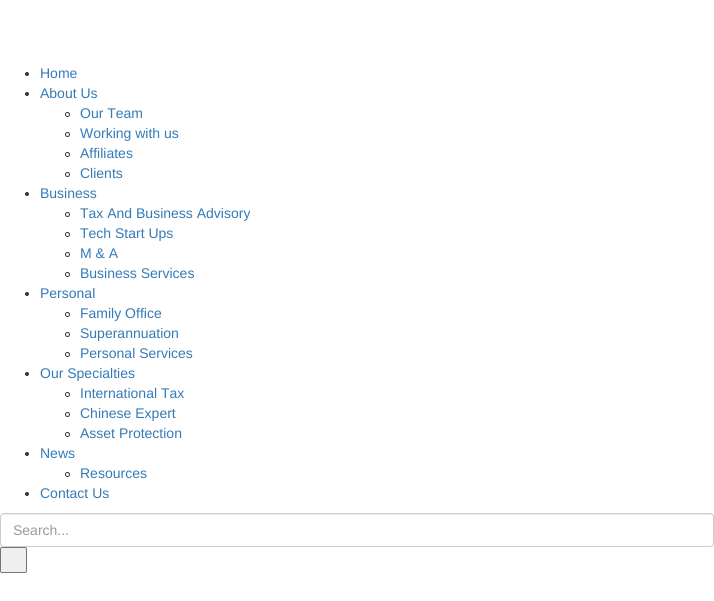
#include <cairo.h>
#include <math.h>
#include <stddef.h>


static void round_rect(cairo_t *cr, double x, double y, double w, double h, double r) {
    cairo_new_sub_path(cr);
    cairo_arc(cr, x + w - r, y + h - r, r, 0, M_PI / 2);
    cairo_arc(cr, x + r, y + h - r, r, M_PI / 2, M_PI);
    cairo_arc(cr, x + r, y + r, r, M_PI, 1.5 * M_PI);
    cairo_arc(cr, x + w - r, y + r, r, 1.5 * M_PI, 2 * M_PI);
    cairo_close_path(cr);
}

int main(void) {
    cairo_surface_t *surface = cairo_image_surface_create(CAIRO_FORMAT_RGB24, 714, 601);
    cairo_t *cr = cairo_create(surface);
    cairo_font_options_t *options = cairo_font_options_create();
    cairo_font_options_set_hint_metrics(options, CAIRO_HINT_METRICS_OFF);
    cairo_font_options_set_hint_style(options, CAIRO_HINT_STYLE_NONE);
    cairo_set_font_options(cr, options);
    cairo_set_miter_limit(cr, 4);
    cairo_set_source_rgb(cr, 1, 1, 1);
    cairo_paint(cr);
    cairo_set_source_rgb(cr, 0.2, 0.2, 0.2);
    cairo_arc(cr, 27, 74, 2, 0, 2 * M_PI);
    cairo_fill(cr);
    cairo_select_font_face(cr, "Liberation Sans", CAIRO_FONT_SLANT_NORMAL, CAIRO_FONT_WEIGHT_NORMAL);
    cairo_set_font_size(cr, 14);
    cairo_set_source_rgb(cr, 0.2, 0.478, 0.718);
    cairo_move_to(cr, 40, 78);
    cairo_show_text(cr, "Home");
    cairo_set_source_rgb(cr, 0.2, 0.2, 0.2);
    cairo_new_path(cr);
    cairo_arc(cr, 27, 94, 2, 0, 2 * M_PI);
    cairo_fill(cr);
    cairo_set_source_rgb(cr, 0.2, 0.478, 0.718);
    cairo_move_to(cr, 40, 98);
    cairo_show_text(cr, "About Us");
    cairo_new_path(cr);
    cairo_arc(cr, 67.5, 114.5, 2, 0, 2 * M_PI);
    cairo_set_source_rgb(cr, 0.2, 0.2, 0.2);
    cairo_set_line_width(cr, 1);
    cairo_stroke(cr);
    cairo_set_source_rgb(cr, 0.2, 0.478, 0.718);
    cairo_move_to(cr, 80, 118);
    cairo_show_text(cr, "Our Team");
    cairo_new_path(cr);
    cairo_arc(cr, 67.5, 134.5, 2, 0, 2 * M_PI);
    cairo_set_source_rgb(cr, 0.2, 0.2, 0.2);
    cairo_stroke(cr);
    cairo_set_source_rgb(cr, 0.2, 0.478, 0.718);
    cairo_move_to(cr, 80, 138);
    cairo_show_text(cr, "Working with us");
    cairo_new_path(cr);
    cairo_arc(cr, 67.5, 154.5, 2, 0, 2 * M_PI);
    cairo_set_source_rgb(cr, 0.2, 0.2, 0.2);
    cairo_stroke(cr);
    cairo_set_source_rgb(cr, 0.2, 0.478, 0.718);
    cairo_move_to(cr, 80, 158);
    cairo_show_text(cr, "Affiliates");
    cairo_new_path(cr);
    cairo_arc(cr, 67.5, 174.5, 2, 0, 2 * M_PI);
    cairo_set_source_rgb(cr, 0.2, 0.2, 0.2);
    cairo_stroke(cr);
    cairo_set_source_rgb(cr, 0.2, 0.478, 0.718);
    cairo_move_to(cr, 80, 178);
    cairo_show_text(cr, "Clients");
    cairo_set_source_rgb(cr, 0.2, 0.2, 0.2);
    cairo_new_path(cr);
    cairo_arc(cr, 27, 194, 2, 0, 2 * M_PI);
    cairo_fill(cr);
    cairo_set_source_rgb(cr, 0.2, 0.478, 0.718);
    cairo_move_to(cr, 40, 198);
    cairo_show_text(cr, "Business");
    cairo_new_path(cr);
    cairo_arc(cr, 67.5, 214.5, 2, 0, 2 * M_PI);
    cairo_set_source_rgb(cr, 0.2, 0.2, 0.2);
    cairo_stroke(cr);
    cairo_set_source_rgb(cr, 0.2, 0.478, 0.718);
    cairo_move_to(cr, 80, 218);
    cairo_show_text(cr, "Tax And Business Advisory");
    cairo_new_path(cr);
    cairo_arc(cr, 67.5, 234.5, 2, 0, 2 * M_PI);
    cairo_set_source_rgb(cr, 0.2, 0.2, 0.2);
    cairo_stroke(cr);
    cairo_set_source_rgb(cr, 0.2, 0.478, 0.718);
    cairo_move_to(cr, 80, 238);
    cairo_show_text(cr, "Tech Start Ups");
    cairo_new_path(cr);
    cairo_arc(cr, 67.5, 254.5, 2, 0, 2 * M_PI);
    cairo_set_source_rgb(cr, 0.2, 0.2, 0.2);
    cairo_stroke(cr);
    cairo_set_source_rgb(cr, 0.2, 0.478, 0.718);
    cairo_move_to(cr, 80, 258);
    cairo_show_text(cr, "M & A");
    cairo_new_path(cr);
    cairo_arc(cr, 67.5, 274.5, 2, 0, 2 * M_PI);
    cairo_set_source_rgb(cr, 0.2, 0.2, 0.2);
    cairo_stroke(cr);
    cairo_set_source_rgb(cr, 0.2, 0.478, 0.718);
    cairo_move_to(cr, 80, 278);
    cairo_show_text(cr, "Business Services");
    cairo_set_source_rgb(cr, 0.2, 0.2, 0.2);
    cairo_new_path(cr);
    cairo_arc(cr, 27, 294, 2, 0, 2 * M_PI);
    cairo_fill(cr);
    cairo_set_source_rgb(cr, 0.2, 0.478, 0.718);
    cairo_move_to(cr, 40, 298);
    cairo_show_text(cr, "Personal");
    cairo_new_path(cr);
    cairo_arc(cr, 67.5, 314.5, 2, 0, 2 * M_PI);
    cairo_set_source_rgb(cr, 0.2, 0.2, 0.2);
    cairo_stroke(cr);
    cairo_set_source_rgb(cr, 0.2, 0.478, 0.718);
    cairo_move_to(cr, 80, 318);
    cairo_show_text(cr, "Family Office");
    cairo_new_path(cr);
    cairo_arc(cr, 67.5, 334.5, 2, 0, 2 * M_PI);
    cairo_set_source_rgb(cr, 0.2, 0.2, 0.2);
    cairo_stroke(cr);
    cairo_set_source_rgb(cr, 0.2, 0.478, 0.718);
    cairo_move_to(cr, 80, 338);
    cairo_show_text(cr, "Superannuation");
    cairo_new_path(cr);
    cairo_arc(cr, 67.5, 354.5, 2, 0, 2 * M_PI);
    cairo_set_source_rgb(cr, 0.2, 0.2, 0.2);
    cairo_stroke(cr);
    cairo_set_source_rgb(cr, 0.2, 0.478, 0.718);
    cairo_move_to(cr, 80, 358);
    cairo_show_text(cr, "Personal Services");
    cairo_set_source_rgb(cr, 0.2, 0.2, 0.2);
    cairo_new_path(cr);
    cairo_arc(cr, 27, 374, 2, 0, 2 * M_PI);
    cairo_fill(cr);
    cairo_set_source_rgb(cr, 0.2, 0.478, 0.718);
    cairo_move_to(cr, 40, 378);
    cairo_show_text(cr, "Our Specialties");
    cairo_new_path(cr);
    cairo_arc(cr, 67.5, 394.5, 2, 0, 2 * M_PI);
    cairo_set_source_rgb(cr, 0.2, 0.2, 0.2);
    cairo_stroke(cr);
    cairo_set_source_rgb(cr, 0.2, 0.478, 0.718);
    cairo_move_to(cr, 80, 398);
    cairo_show_text(cr, "International Tax");
    cairo_new_path(cr);
    cairo_arc(cr, 67.5, 414.5, 2, 0, 2 * M_PI);
    cairo_set_source_rgb(cr, 0.2, 0.2, 0.2);
    cairo_stroke(cr);
    cairo_set_source_rgb(cr, 0.2, 0.478, 0.718);
    cairo_move_to(cr, 80, 418);
    cairo_show_text(cr, "Chinese Expert");
    cairo_new_path(cr);
    cairo_arc(cr, 67.5, 434.5, 2, 0, 2 * M_PI);
    cairo_set_source_rgb(cr, 0.2, 0.2, 0.2);
    cairo_stroke(cr);
    cairo_set_source_rgb(cr, 0.2, 0.478, 0.718);
    cairo_move_to(cr, 80, 438);
    cairo_show_text(cr, "Asset Protection");
    cairo_set_source_rgb(cr, 0.2, 0.2, 0.2);
    cairo_new_path(cr);
    cairo_arc(cr, 27, 454, 2, 0, 2 * M_PI);
    cairo_fill(cr);
    cairo_set_source_rgb(cr, 0.2, 0.478, 0.718);
    cairo_move_to(cr, 40, 458);
    cairo_show_text(cr, "News");
    cairo_new_path(cr);
    cairo_arc(cr, 67.5, 474.5, 2, 0, 2 * M_PI);
    cairo_set_source_rgb(cr, 0.2, 0.2, 0.2);
    cairo_stroke(cr);
    cairo_set_source_rgb(cr, 0.2, 0.478, 0.718);
    cairo_move_to(cr, 80, 478);
    cairo_show_text(cr, "Resources");
    cairo_set_source_rgb(cr, 0.2, 0.2, 0.2);
    cairo_new_path(cr);
    cairo_arc(cr, 27, 494, 2, 0, 2 * M_PI);
    cairo_fill(cr);
    cairo_set_source_rgb(cr, 0.2, 0.478, 0.718);
    cairo_move_to(cr, 40, 498);
    cairo_show_text(cr, "Contact Us");
    cairo_set_source_rgb(cr, 0.925, 0.925, 0.925);
    cairo_new_path(cr);
    cairo_move_to(cr, 4, 515);
    cairo_line_to(cr, 710, 515);
    cairo_curve_to(cr, 712, 515, 713, 516, 713, 518);
    cairo_curve_to(cr, 713, 516, 712, 514, 710, 514);
    cairo_line_to(cr, 4, 514);
    cairo_curve_to(cr, 2, 514, 1, 516, 1, 518);
    cairo_curve_to(cr, 1, 516, 2, 515, 4, 515);
    cairo_close_path(cr);
    cairo_fill(cr);
    round_rect(cr, 0.5, 513.5, 713, 33, 3.5);
    cairo_set_source_rgb(cr, 0.8, 0.8, 0.8);
    cairo_stroke(cr);
    cairo_set_source_rgb(cr, 0.6, 0.6, 0.6);
    cairo_move_to(cr, 13, 535);
    cairo_show_text(cr, "Search...");
    cairo_set_source_rgb(cr, 0.937, 0.937, 0.937);
    round_rect(cr, 0.5, 547.5, 26, 25, 1.5);
    cairo_fill_preserve(cr);
    cairo_set_source_rgb(cr, 0.463, 0.463, 0.463);
    cairo_stroke(cr);
    cairo_surface_write_to_png(surface, "page.png");
    cairo_font_options_destroy(options);
    cairo_destroy(cr);
    cairo_surface_destroy(surface);
    return 0;
}
